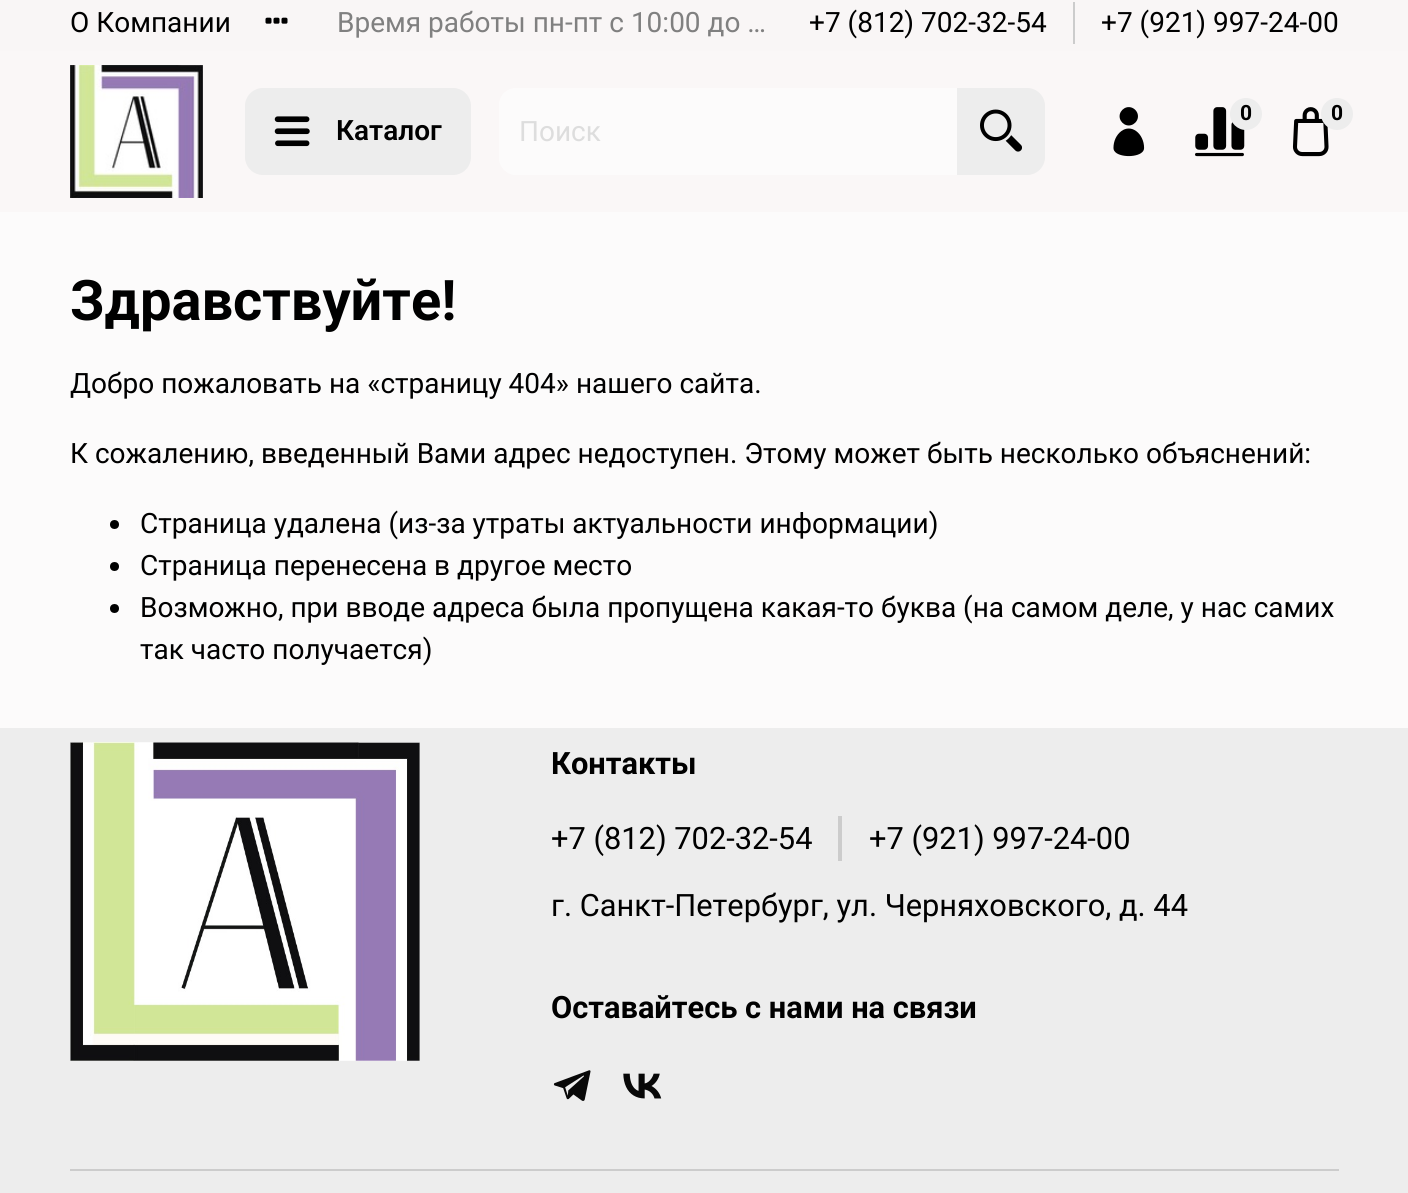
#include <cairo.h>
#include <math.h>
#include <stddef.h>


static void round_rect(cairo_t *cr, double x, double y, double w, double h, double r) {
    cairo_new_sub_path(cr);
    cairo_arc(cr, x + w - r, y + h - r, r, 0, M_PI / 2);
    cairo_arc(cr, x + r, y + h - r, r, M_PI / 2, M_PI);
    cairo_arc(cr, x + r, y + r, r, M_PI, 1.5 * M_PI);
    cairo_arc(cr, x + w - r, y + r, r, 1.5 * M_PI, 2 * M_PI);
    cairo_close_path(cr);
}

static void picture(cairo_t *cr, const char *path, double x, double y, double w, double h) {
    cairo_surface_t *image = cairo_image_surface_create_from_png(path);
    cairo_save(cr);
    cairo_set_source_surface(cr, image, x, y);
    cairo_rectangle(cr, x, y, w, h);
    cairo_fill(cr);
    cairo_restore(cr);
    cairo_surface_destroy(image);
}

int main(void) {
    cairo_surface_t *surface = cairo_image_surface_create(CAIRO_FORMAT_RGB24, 1408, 1193);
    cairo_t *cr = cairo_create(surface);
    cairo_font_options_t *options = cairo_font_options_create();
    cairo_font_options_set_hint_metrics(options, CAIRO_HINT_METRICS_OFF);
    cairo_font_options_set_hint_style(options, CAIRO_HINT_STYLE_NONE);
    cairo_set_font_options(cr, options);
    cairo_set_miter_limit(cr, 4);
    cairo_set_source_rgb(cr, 0.988, 0.984, 0.984);
    cairo_paint(cr);
    cairo_set_source_rgb(cr, 0.976, 0.961, 0.961);
    cairo_rectangle(cr, 0, 0, 1408, 51);
    cairo_fill(cr);
    cairo_select_font_face(cr, "Roboto", CAIRO_FONT_SLANT_NORMAL, CAIRO_FONT_WEIGHT_NORMAL);
    cairo_set_font_size(cr, 28);
    cairo_set_source_rgb(cr, 0, 0, 0);
    cairo_move_to(cr, 70, 32);
    cairo_show_text(cr, "О Компании");
    picture(cr, "img1.png", 265, 17, 23, 7);
    cairo_set_source_rgb(cr, 0.502, 0.502, 0.502);
    cairo_move_to(cr, 337, 32);
    cairo_show_text(cr, "Время работы пн-пт с 10:00 до …");
    cairo_set_source_rgb(cr, 0.8, 0.8, 0.8);
    cairo_rectangle(cr, 1073, 2, 2, 42);
    cairo_fill(cr);
    cairo_set_source_rgb(cr, 0, 0, 0);
    cairo_move_to(cr, 809, 32);
    cairo_show_text(cr, "+7 (812) 702-32-54");
    cairo_move_to(cr, 1101, 32);
    cairo_show_text(cr, "+7 (921) 997-24-00");
    cairo_set_source_rgb(cr, 0.98, 0.965, 0.965);
    cairo_rectangle(cr, 0, 51, 1408, 161);
    cairo_fill(cr);
    picture(cr, "img2.png", 70, 65, 133, 133);
    picture(cr, "img3.png", 1113, 107, 32, 50);
    picture(cr, "img4.png", 1195, 107, 50, 50);
    cairo_set_source_rgb(cr, 0.929, 0.929, 0.929);
    cairo_arc(cr, 1246, 114, 16, 0, 2 * M_PI);
    cairo_fill(cr);
    cairo_select_font_face(cr, "Roboto", CAIRO_FONT_SLANT_NORMAL, CAIRO_FONT_WEIGHT_BOLD);
    cairo_set_font_size(cr, 21);
    cairo_set_source_rgb(cr, 0, 0, 0);
    cairo_move_to(cr, 1240, 120);
    cairo_show_text(cr, "0");
    picture(cr, "img5.png", 1292, 107, 37, 50);
    cairo_set_source_rgb(cr, 0.929, 0.929, 0.929);
    cairo_arc(cr, 1337, 114, 16, 0, 2 * M_PI);
    cairo_fill(cr);
    cairo_set_source_rgb(cr, 0, 0, 0);
    cairo_move_to(cr, 1331, 120);
    cairo_show_text(cr, "0");
    cairo_set_source_rgb(cr, 0.929, 0.929, 0.929);
    round_rect(cr, 245, 88, 226, 87, 18);
    cairo_fill(cr);
    picture(cr, "img6.png", 274, 116, 36, 31);
    cairo_select_font_face(cr, "Roboto SemiBold", CAIRO_FONT_SLANT_NORMAL, CAIRO_FONT_WEIGHT_NORMAL);
    cairo_set_font_size(cr, 28);
    cairo_set_source_rgb(cr, 0, 0, 0);
    cairo_move_to(cr, 336, 140);
    cairo_show_text(cr, "Каталог");
    cairo_set_source_rgb(cr, 0.988, 0.984, 0.984);
    cairo_new_path(cr);
    cairo_move_to(cr, 517, 88);
    cairo_line_to(cr, 957, 88);
    cairo_line_to(cr, 957, 175);
    cairo_line_to(cr, 517, 175);
    cairo_curve_to(cr, 507, 175, 499, 167, 499, 157);
    cairo_line_to(cr, 499, 106);
    cairo_curve_to(cr, 499, 96, 507, 88, 517, 88);
    cairo_close_path(cr);
    cairo_fill(cr);
    cairo_set_fill_rule(cr, CAIRO_FILL_RULE_EVEN_ODD);
    cairo_new_path(cr);
    cairo_move_to(cr, 516, 88);
    cairo_line_to(cr, 957, 88);
    cairo_line_to(cr, 957, 175);
    cairo_line_to(cr, 516, 175);
    cairo_curve_to(cr, 507, 175, 499, 167, 499, 158);
    cairo_line_to(cr, 499, 105);
    cairo_curve_to(cr, 499, 95, 507, 88, 516, 88);
    cairo_close_path(cr);
    cairo_move_to(cr, 516, 89);
    cairo_line_to(cr, 957, 89);
    cairo_line_to(cr, 957, 173);
    cairo_line_to(cr, 516, 173);
    cairo_curve_to(cr, 508, 173, 500, 166, 500, 158);
    cairo_line_to(cr, 500, 105);
    cairo_curve_to(cr, 500, 96, 508, 89, 516, 89);
    cairo_close_path(cr);
    cairo_fill(cr);
    cairo_select_font_face(cr, "Roboto", CAIRO_FONT_SLANT_NORMAL, CAIRO_FONT_WEIGHT_NORMAL);
    cairo_set_source_rgb(cr, 0.867, 0.867, 0.867);
    cairo_move_to(cr, 519, 141);
    cairo_show_text(cr, "Поиск");
    cairo_set_source_rgb(cr, 0.929, 0.929, 0.929);
    cairo_new_path(cr);
    cairo_move_to(cr, 957, 88);
    cairo_line_to(cr, 1027, 88);
    cairo_curve_to(cr, 1037, 88, 1045, 96, 1045, 106);
    cairo_line_to(cr, 1045, 157);
    cairo_curve_to(cr, 1045, 167, 1037, 175, 1027, 175);
    cairo_line_to(cr, 957, 175);
    cairo_close_path(cr);
    cairo_fill(cr);
    picture(cr, "img7.png", 980, 109, 42, 43);
    cairo_select_font_face(cr, "Roboto", CAIRO_FONT_SLANT_NORMAL, CAIRO_FONT_WEIGHT_BOLD);
    cairo_set_font_size(cr, 56);
    cairo_set_source_rgb(cr, 0, 0, 0);
    cairo_move_to(cr, 70, 320);
    cairo_show_text(cr, "Здравствуйте!");
    cairo_select_font_face(cr, "Roboto", CAIRO_FONT_SLANT_NORMAL, CAIRO_FONT_WEIGHT_NORMAL);
    cairo_set_font_size(cr, 28);
    cairo_move_to(cr, 70, 393);
    cairo_show_text(cr, "Добро пожаловать на «страницу 404» нашего сайта.");
    cairo_move_to(cr, 70, 463);
    cairo_show_text(cr, "К сожалению, введенный Вами адрес недоступен. Этому может быть несколько объяснений:");
    cairo_new_path(cr);
    cairo_arc(cr, 114.5, 524.5, 4.5, 0, 2 * M_PI);
    cairo_fill(cr);
    cairo_move_to(cr, 140, 533);
    cairo_show_text(cr, "Страница удалена (из-за утраты актуальности информации)");
    cairo_new_path(cr);
    cairo_arc(cr, 114.5, 566.5, 4.5, 0, 2 * M_PI);
    cairo_fill(cr);
    cairo_move_to(cr, 140, 575);
    cairo_show_text(cr, "Страница перенесена в другое место");
    cairo_new_path(cr);
    cairo_arc(cr, 114.5, 608.5, 4.5, 0, 2 * M_PI);
    cairo_fill(cr);
    cairo_move_to(cr, 140, 617);
    cairo_show_text(cr, "Возможно, при вводе адреса была пропущена какая-то буква (на самом деле, у нас самих");
    cairo_move_to(cr, 140, 659);
    cairo_show_text(cr, "так часто получается)");
    cairo_set_source_rgb(cr, 0.929, 0.929, 0.929);
    cairo_rectangle(cr, 0, 728, 1408, 465);
    cairo_fill(cr);
    picture(cr, "img8.png", 70, 742, 350, 319);
    cairo_select_font_face(cr, "Roboto", CAIRO_FONT_SLANT_NORMAL, CAIRO_FONT_WEIGHT_BOLD);
    cairo_set_font_size(cr, 30.8);
    cairo_set_source_rgb(cr, 0, 0, 0);
    cairo_move_to(cr, 551, 774);
    cairo_show_text(cr, "Контакты");
    cairo_set_source_rgb(cr, 0.8, 0.8, 0.8);
    cairo_rectangle(cr, 838, 816, 4, 45);
    cairo_fill(cr);
    cairo_select_font_face(cr, "Roboto", CAIRO_FONT_SLANT_NORMAL, CAIRO_FONT_WEIGHT_NORMAL);
    cairo_set_source_rgb(cr, 0, 0, 0);
    cairo_move_to(cr, 551, 849);
    cairo_show_text(cr, "+7 (812) 702-32-54");
    cairo_move_to(cr, 869, 849);
    cairo_show_text(cr, "+7 (921) 997-24-00");
    cairo_move_to(cr, 551, 916);
    cairo_show_text(cr, "г. Санкт-Петербург, ул. Черняховского, д. 44");
    cairo_select_font_face(cr, "Roboto", CAIRO_FONT_SLANT_NORMAL, CAIRO_FONT_WEIGHT_BOLD);
    cairo_move_to(cr, 551, 1018);
    cairo_show_text(cr, "Оставайтесь с нами на связи");
    picture(cr, "img9.png", 553, 1070, 38, 31);
    picture(cr, "img10.png", 623, 1073, 39, 26);
    cairo_set_source_rgb(cr, 0.8, 0.8, 0.8);
    cairo_rectangle(cr, 70, 1169, 1269, 2);
    cairo_fill(cr);
    cairo_surface_write_to_png(surface, "page.png");
    cairo_font_options_destroy(options);
    cairo_destroy(cr);
    cairo_surface_destroy(surface);
    return 0;
}
